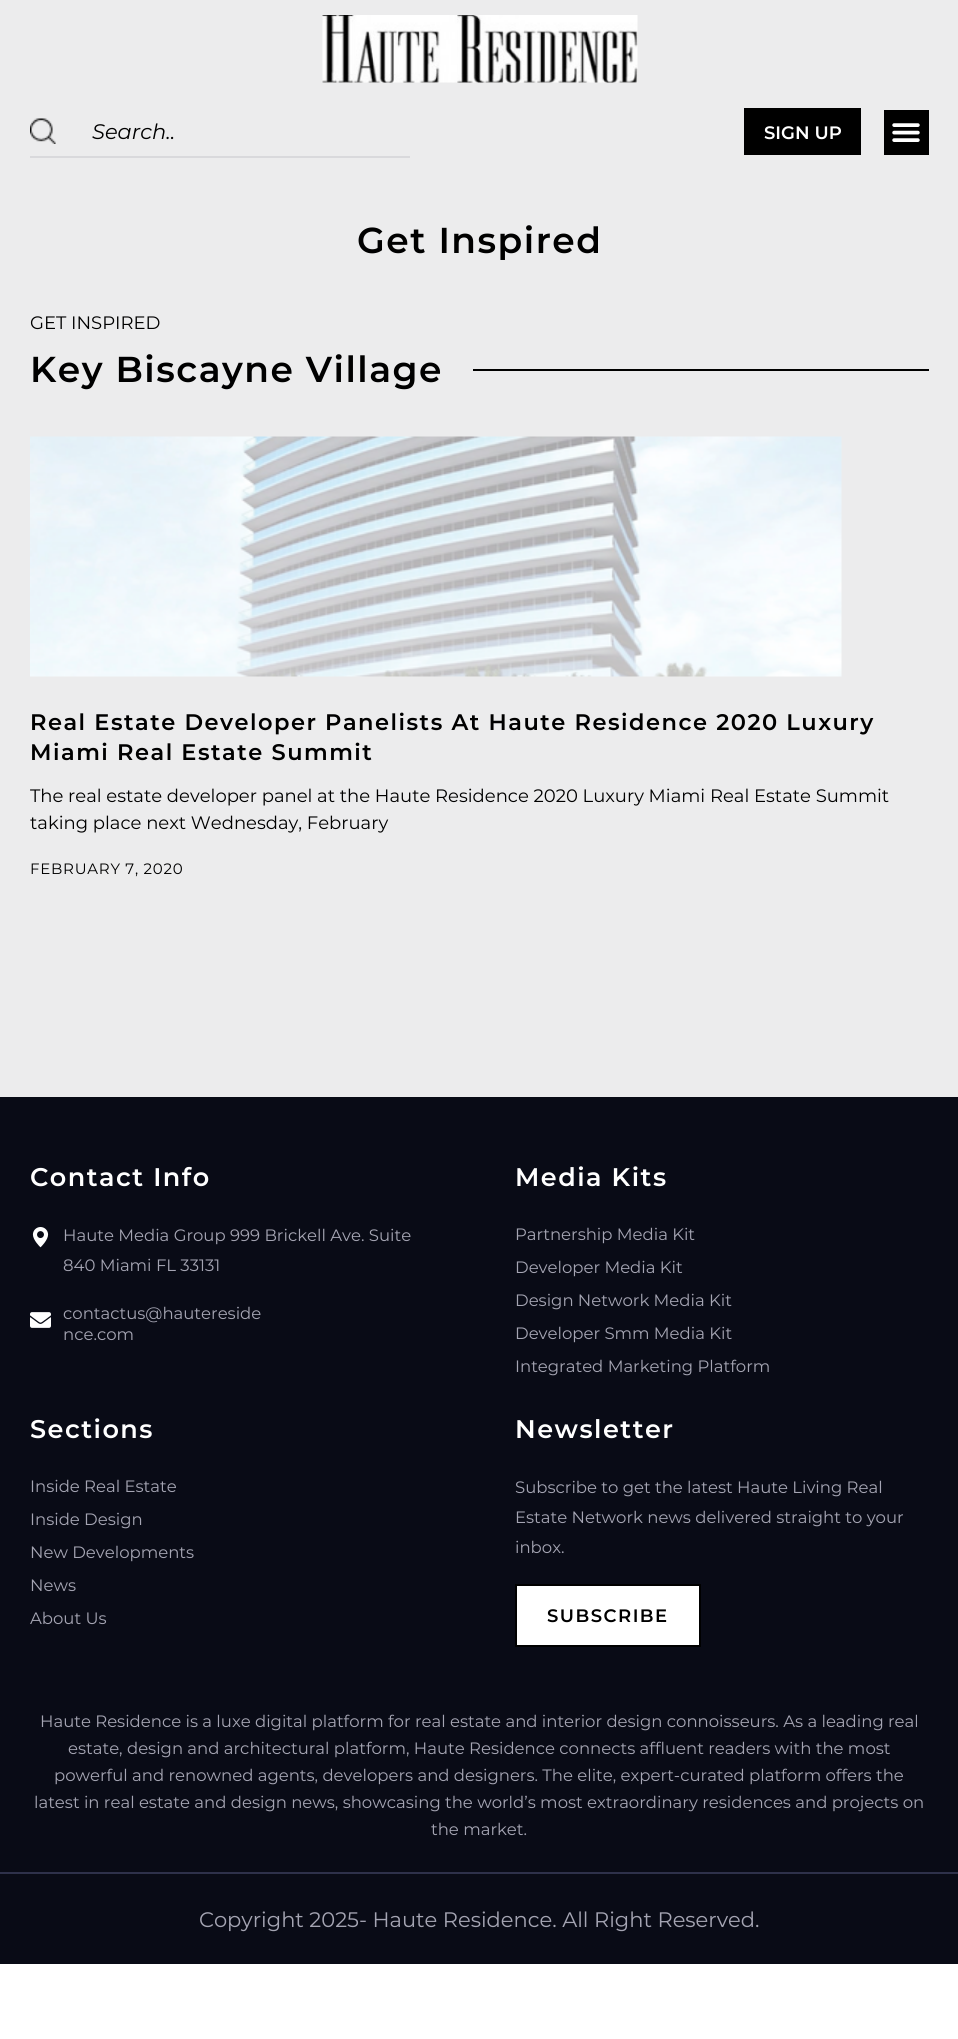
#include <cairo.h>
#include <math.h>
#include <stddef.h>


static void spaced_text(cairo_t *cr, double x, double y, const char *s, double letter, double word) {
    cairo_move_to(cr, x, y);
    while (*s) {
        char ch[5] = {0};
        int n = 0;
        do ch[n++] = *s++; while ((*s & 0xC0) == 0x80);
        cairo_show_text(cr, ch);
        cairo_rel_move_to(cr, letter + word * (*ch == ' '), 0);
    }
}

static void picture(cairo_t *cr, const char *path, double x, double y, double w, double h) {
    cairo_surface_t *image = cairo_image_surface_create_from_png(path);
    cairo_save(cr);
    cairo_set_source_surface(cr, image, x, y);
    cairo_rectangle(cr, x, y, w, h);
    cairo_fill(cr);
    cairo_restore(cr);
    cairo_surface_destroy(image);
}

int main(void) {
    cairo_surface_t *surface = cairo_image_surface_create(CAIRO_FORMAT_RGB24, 958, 2039);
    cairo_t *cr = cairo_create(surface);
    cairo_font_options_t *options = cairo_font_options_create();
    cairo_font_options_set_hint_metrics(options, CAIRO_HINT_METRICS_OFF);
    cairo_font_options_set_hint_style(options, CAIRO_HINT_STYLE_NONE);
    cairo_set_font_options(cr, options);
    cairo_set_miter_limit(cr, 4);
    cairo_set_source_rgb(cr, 1, 1, 1);
    cairo_paint(cr);
    cairo_set_source_rgb(cr, 0.922, 0.922, 0.929);
    cairo_rectangle(cr, 0, 0, 958, 1097);
    cairo_fill(cr);
    picture(cr, "img1.png", 322, 15, 316, 68);
    picture(cr, "img2.png", 30, 118, 26, 26);
    cairo_set_source_rgb(cr, 0.851, 0.851, 0.863);
    cairo_rectangle(cr, 30, 156, 380, 2);
    cairo_fill(cr);
    cairo_select_font_face(cr, "Montserrat", CAIRO_FONT_SLANT_ITALIC, CAIRO_FONT_WEIGHT_NORMAL);
    cairo_set_font_size(cr, 21);
    cairo_set_source_rgb(cr, 0, 0, 0);
    cairo_move_to(cr, 92, 139);
    cairo_show_text(cr, "Search..");
    cairo_rectangle(cr, 744, 108, 117, 47);
    cairo_fill(cr);
    cairo_select_font_face(cr, "Montserrat SemiBold", CAIRO_FONT_SLANT_NORMAL, CAIRO_FONT_WEIGHT_NORMAL);
    cairo_set_font_size(cr, 18);
    cairo_set_source_rgb(cr, 1, 1, 1);
    cairo_move_to(cr, 764, 139);
    cairo_show_text(cr, "SIGN UP");
    cairo_set_source_rgb(cr, 0, 0, 0);
    cairo_rectangle(cr, 884, 110, 45, 45);
    cairo_fill(cr);
    picture(cr, "img3.png", 892, 123, 28, 19);
    cairo_set_font_size(cr, 36);
    spaced_text(cr, 357, 253, "Get Inspired", 1.5, 0);
    cairo_select_font_face(cr, "Montserrat", CAIRO_FONT_SLANT_NORMAL, CAIRO_FONT_WEIGHT_NORMAL);
    cairo_set_font_size(cr, 18);
    cairo_move_to(cr, 30, 329);
    cairo_show_text(cr, "GET INSPIRED");
    cairo_select_font_face(cr, "Montserrat SemiBold", CAIRO_FONT_SLANT_NORMAL, CAIRO_FONT_WEIGHT_NORMAL);
    cairo_set_font_size(cr, 36);
    spaced_text(cr, 30, 382, "Key Biscayne Village", 1.5, 0);
    cairo_rectangle(cr, 473, 369, 456, 2);
    cairo_fill(cr);
    picture(cr, "img4.png", 30, 436, 812, 241);
    cairo_set_font_size(cr, 22.5);
    spaced_text(cr, 30, 730, "Real Estate Developer Panelists At Haute Residence 2020 Luxury", 1.5, 0);
    spaced_text(cr, 30, 760, "Miami Real Estate Summit", 1.5, 0);
    cairo_select_font_face(cr, "Montserrat", CAIRO_FONT_SLANT_NORMAL, CAIRO_FONT_WEIGHT_NORMAL);
    cairo_set_font_size(cr, 18);
    cairo_move_to(cr, 30, 802);
    cairo_show_text(cr, "The real estate developer panel at the Haute Residence 2020 Luxury Miami Real Estate Summit");
    cairo_move_to(cr, 30, 829);
    cairo_show_text(cr, "taking place next Wednesday, February");
    cairo_set_font_size(cr, 15);
    spaced_text(cr, 30, 874, "FEBRUARY 7, 2020", 0.75, 0);
    cairo_set_source_rgb(cr, 0.039, 0.043, 0.086);
    cairo_rectangle(cr, 0, 1097, 958, 775);
    cairo_fill(cr);
    cairo_select_font_face(cr, "Montserrat SemiBold", CAIRO_FONT_SLANT_NORMAL, CAIRO_FONT_WEIGHT_NORMAL);
    cairo_set_font_size(cr, 25.5);
    cairo_set_source_rgb(cr, 1, 1, 1);
    spaced_text(cr, 30, 1186, "Contact Info", 1.5, 0);
    picture(cr, "img5.png", 32, 1227, 17, 21);
    cairo_select_font_face(cr, "Montserrat", CAIRO_FONT_SLANT_NORMAL, CAIRO_FONT_WEIGHT_NORMAL);
    cairo_set_font_size(cr, 16.5);
    cairo_set_source_rgb(cr, 0.647, 0.647, 0.702);
    cairo_move_to(cr, 63, 1241);
    cairo_show_text(cr, "Haute Media Group 999 Brickell Ave. Suite");
    cairo_move_to(cr, 63, 1271);
    cairo_show_text(cr, "840 Miami FL 33131");
    picture(cr, "img6.png", 30, 1312, 21, 16);
    cairo_move_to(cr, 63, 1319);
    cairo_show_text(cr, "contactus@hautereside");
    cairo_move_to(cr, 63, 1340);
    cairo_show_text(cr, "nce.com");
    cairo_select_font_face(cr, "Montserrat SemiBold", CAIRO_FONT_SLANT_NORMAL, CAIRO_FONT_WEIGHT_NORMAL);
    cairo_set_font_size(cr, 25.5);
    cairo_set_source_rgb(cr, 1, 1, 1);
    spaced_text(cr, 515, 1186, "Media Kits", 1.5, 0);
    cairo_select_font_face(cr, "Montserrat", CAIRO_FONT_SLANT_NORMAL, CAIRO_FONT_WEIGHT_NORMAL);
    cairo_set_font_size(cr, 16.5);
    cairo_set_source_rgb(cr, 0.647, 0.647, 0.702);
    cairo_move_to(cr, 515, 1240);
    cairo_show_text(cr, "Partnership Media Kit");
    cairo_move_to(cr, 515, 1273);
    cairo_show_text(cr, "Developer Media Kit");
    cairo_move_to(cr, 515, 1306);
    cairo_show_text(cr, "Design Network Media Kit");
    cairo_move_to(cr, 515, 1339);
    cairo_show_text(cr, "Developer Smm Media Kit");
    cairo_move_to(cr, 515, 1372);
    cairo_show_text(cr, "Integrated Marketing Platform");
    cairo_select_font_face(cr, "Montserrat SemiBold", CAIRO_FONT_SLANT_NORMAL, CAIRO_FONT_WEIGHT_NORMAL);
    cairo_set_font_size(cr, 25.5);
    cairo_set_source_rgb(cr, 1, 1, 1);
    spaced_text(cr, 30, 1438, "Sections", 1.5, 0);
    cairo_select_font_face(cr, "Montserrat", CAIRO_FONT_SLANT_NORMAL, CAIRO_FONT_WEIGHT_NORMAL);
    cairo_set_font_size(cr, 16.5);
    cairo_set_source_rgb(cr, 0.647, 0.647, 0.702);
    cairo_move_to(cr, 30, 1492);
    cairo_show_text(cr, "Inside Real Estate");
    cairo_move_to(cr, 30, 1525);
    cairo_show_text(cr, "Inside Design");
    cairo_move_to(cr, 30, 1558);
    cairo_show_text(cr, "New Developments");
    cairo_move_to(cr, 30, 1591);
    cairo_show_text(cr, "News");
    cairo_move_to(cr, 30, 1624);
    cairo_show_text(cr, "About Us");
    cairo_select_font_face(cr, "Montserrat SemiBold", CAIRO_FONT_SLANT_NORMAL, CAIRO_FONT_WEIGHT_NORMAL);
    cairo_set_font_size(cr, 25.5);
    cairo_set_source_rgb(cr, 1, 1, 1);
    spaced_text(cr, 515, 1438, "Newsletter", 1.5, 0);
    cairo_select_font_face(cr, "Montserrat", CAIRO_FONT_SLANT_NORMAL, CAIRO_FONT_WEIGHT_NORMAL);
    cairo_set_font_size(cr, 16.5);
    cairo_set_source_rgb(cr, 0.647, 0.647, 0.702);
    cairo_move_to(cr, 515, 1493);
    cairo_show_text(cr, "Subscribe to get the latest Haute Living Real");
    cairo_move_to(cr, 515, 1523);
    cairo_show_text(cr, "Estate Network news delivered straight to your");
    cairo_move_to(cr, 515, 1553);
    cairo_show_text(cr, "inbox.");
    cairo_set_source_rgb(cr, 1, 1, 1);
    cairo_rectangle(cr, 516, 1585, 184, 61);
    cairo_fill_preserve(cr);
    cairo_set_source_rgb(cr, 0, 0, 0);
    cairo_stroke(cr);
    cairo_select_font_face(cr, "Montserrat SemiBold", CAIRO_FONT_SLANT_NORMAL, CAIRO_FONT_WEIGHT_NORMAL);
    cairo_set_font_size(cr, 18);
    spaced_text(cr, 547, 1622, "SUBSCRIBE", 1.5, 0);
    cairo_set_source_rgb(cr, 0.18, 0.192, 0.29);
    cairo_rectangle(cr, 0, 1872, 958, 2);
    cairo_fill(cr);
    cairo_select_font_face(cr, "Montserrat", CAIRO_FONT_SLANT_NORMAL, CAIRO_FONT_WEIGHT_NORMAL);
    cairo_set_font_size(cr, 16.5);
    cairo_set_source_rgb(cr, 0.647, 0.647, 0.702);
    cairo_move_to(cr, 40, 1727);
    cairo_show_text(cr, "Haute Residence is a luxe digital platform for real estate and interior design connoisseurs. As a leading real");
    cairo_move_to(cr, 68, 1754);
    cairo_show_text(cr, "estate, design and architectural platform, Haute Residence connects affluent readers with the most");
    cairo_move_to(cr, 54, 1781);
    cairo_show_text(cr, "powerful and renowned agents, developers and designers. The elite, expert-curated platform offers the");
    cairo_move_to(cr, 34, 1808);
    cairo_show_text(cr, "latest in real estate and design news, showcasing the world’s most extraordinary residences and projects on");
    cairo_move_to(cr, 431, 1835);
    cairo_show_text(cr, "the market.");
    cairo_set_source_rgb(cr, 0.039, 0.043, 0.086);
    cairo_rectangle(cr, 0, 1874, 958, 90);
    cairo_fill(cr);
    cairo_set_font_size(cr, 21);
    cairo_set_source_rgb(cr, 0.647, 0.647, 0.702);
    cairo_move_to(cr, 199, 1927);
    cairo_show_text(cr, "Copyright 2025- Haute Residence. All Right Reserved.");
    cairo_surface_write_to_png(surface, "page.png");
    cairo_font_options_destroy(options);
    cairo_destroy(cr);
    cairo_surface_destroy(surface);
    return 0;
}
